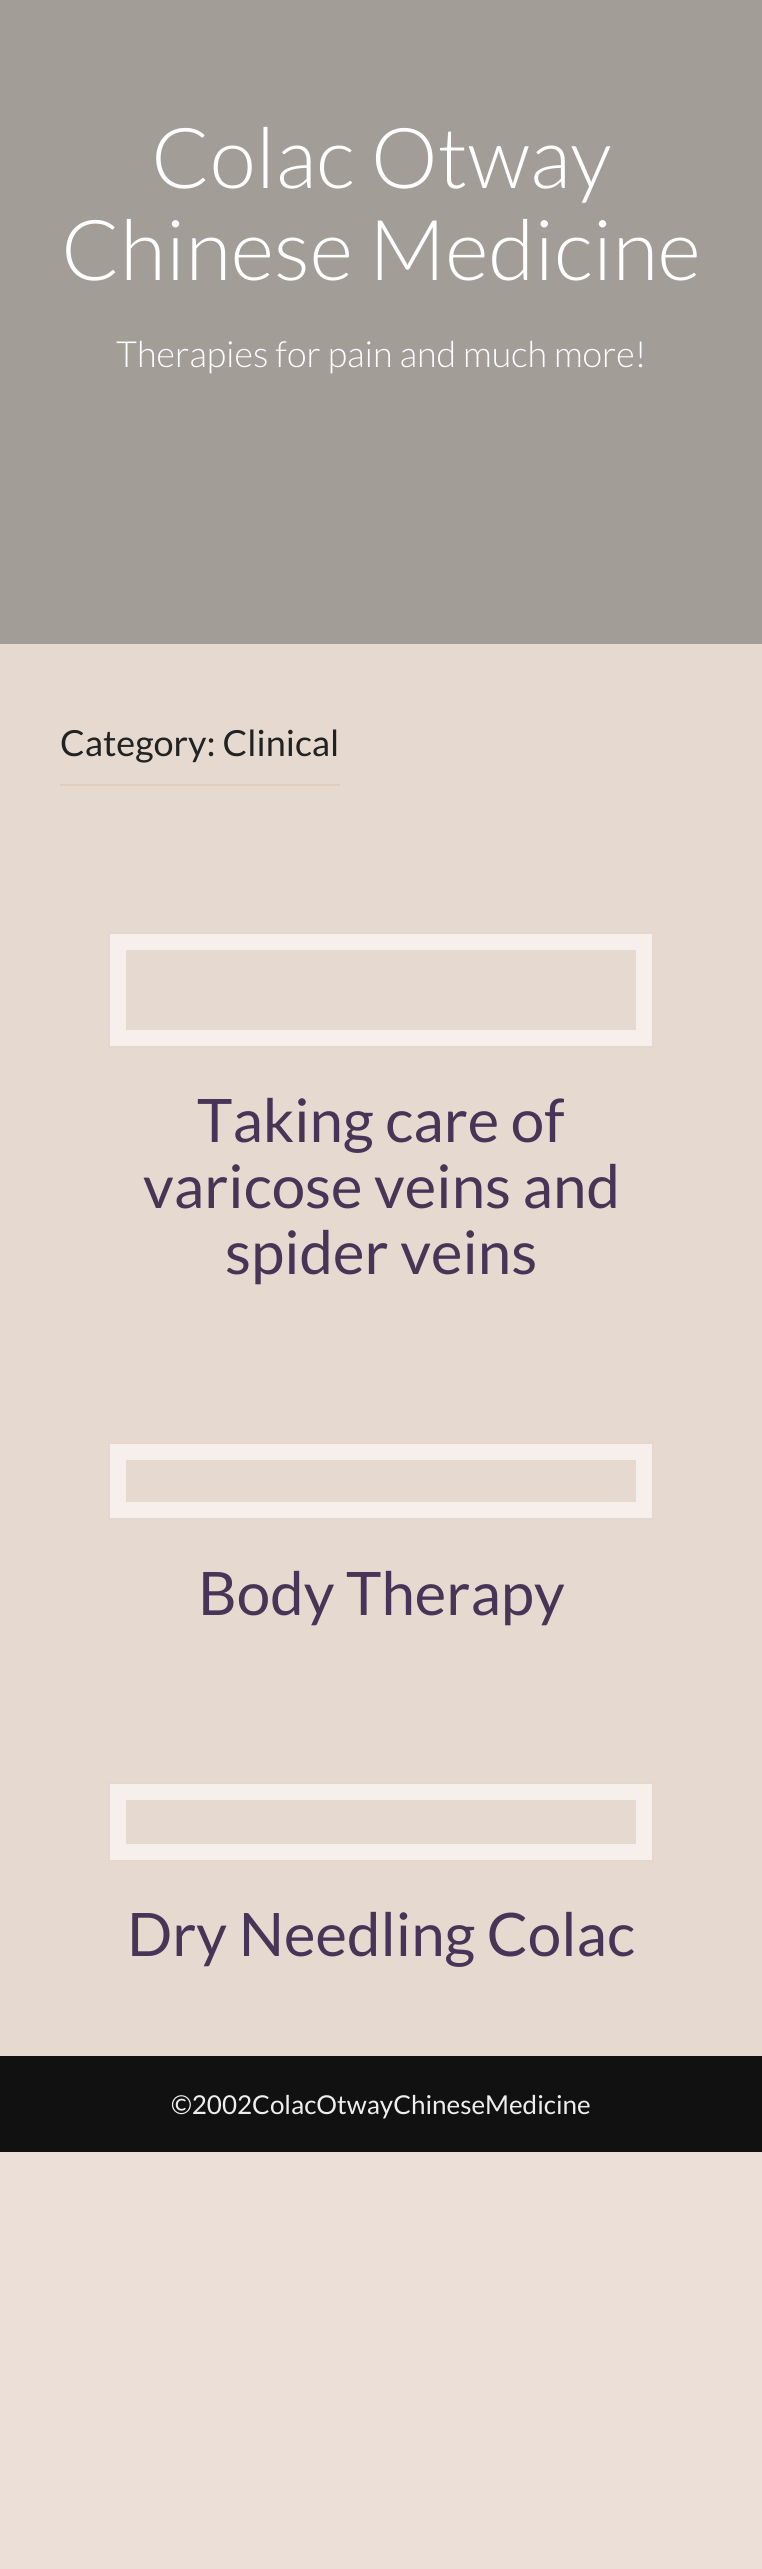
#include <cairo.h>
#include <math.h>
#include <stddef.h>


int main(void) {
    cairo_surface_t *surface = cairo_image_surface_create(CAIRO_FORMAT_RGB24, 762, 2569);
    cairo_t *cr = cairo_create(surface);
    cairo_font_options_t *options = cairo_font_options_create();
    cairo_font_options_set_hint_metrics(options, CAIRO_HINT_METRICS_OFF);
    cairo_font_options_set_hint_style(options, CAIRO_HINT_STYLE_NONE);
    cairo_set_font_options(cr, options);
    cairo_set_miter_limit(cr, 4);
    cairo_set_source_rgb(cr, 0.918, 0.875, 0.843);
    cairo_paint(cr);
    cairo_set_source_rgb(cr, 0.639, 0.616, 0.592);
    cairo_rectangle(cr, 0, 0, 762, 644);
    cairo_fill(cr);
    cairo_select_font_face(cr, "Lato Light", CAIRO_FONT_SLANT_NORMAL, CAIRO_FONT_WEIGHT_NORMAL);
    cairo_set_font_size(cr, 84);
    cairo_set_source_rgb(cr, 1, 1, 1);
    cairo_move_to(cr, 151, 188);
    cairo_show_text(cr, "Colac Otway");
    cairo_move_to(cr, 61, 280);
    cairo_show_text(cr, "Chinese Medicine");
    cairo_set_font_size(cr, 36);
    cairo_move_to(cr, 116, 367);
    cairo_show_text(cr, "Therapies for pain and much more!");
    cairo_set_source_rgb(cr, 0.902, 0.855, 0.816);
    cairo_rectangle(cr, 0, 644, 762, 1412);
    cairo_fill(cr);
    cairo_set_source_rgb(cr, 0.875, 0.812, 0.765);
    cairo_rectangle(cr, 60, 784, 280, 2);
    cairo_fill(cr);
    cairo_select_font_face(cr, "Lato", CAIRO_FONT_SLANT_NORMAL, CAIRO_FONT_WEIGHT_NORMAL);
    cairo_set_source_rgb(cr, 0.133, 0.133, 0.133);
    cairo_move_to(cr, 60, 756);
    cairo_show_text(cr, "Category: Clinical");
    cairo_rectangle(cr, 118, 942, 526, 96);
    cairo_set_source_rgb(cr, 0.961, 0.937, 0.922);
    cairo_set_line_width(cr, 16);
    cairo_stroke(cr);
    cairo_rectangle(cr, 109, 933, 544, 114);
    cairo_set_source_rgb(cr, 0.898, 0.843, 0.804);
    cairo_set_line_width(cr, 2);
    cairo_stroke(cr);
    cairo_set_font_size(cr, 60);
    cairo_set_source_rgb(cr, 0.282, 0.204, 0.337);
    cairo_move_to(cr, 197, 1142);
    cairo_show_text(cr, "Taking care of");
    cairo_move_to(cr, 143, 1208);
    cairo_show_text(cr, "varicose veins and");
    cairo_move_to(cr, 225, 1274);
    cairo_show_text(cr, "spider veins");
    cairo_rectangle(cr, 118, 1452, 526, 58);
    cairo_set_source_rgb(cr, 0.961, 0.937, 0.922);
    cairo_set_line_width(cr, 16);
    cairo_stroke(cr);
    cairo_rectangle(cr, 109, 1443, 544, 76);
    cairo_set_source_rgb(cr, 0.898, 0.843, 0.804);
    cairo_set_line_width(cr, 2);
    cairo_stroke(cr);
    cairo_set_source_rgb(cr, 0.282, 0.204, 0.337);
    cairo_move_to(cr, 198, 1615);
    cairo_show_text(cr, "Body Therapy");
    cairo_rectangle(cr, 118, 1792, 526, 60);
    cairo_set_source_rgb(cr, 0.961, 0.937, 0.922);
    cairo_set_line_width(cr, 16);
    cairo_stroke(cr);
    cairo_rectangle(cr, 109, 1783, 544, 78);
    cairo_set_source_rgb(cr, 0.898, 0.843, 0.804);
    cairo_set_line_width(cr, 2);
    cairo_stroke(cr);
    cairo_set_source_rgb(cr, 0.282, 0.204, 0.337);
    cairo_move_to(cr, 127, 1956);
    cairo_show_text(cr, "Dry Needling Colac");
    cairo_set_source_rgb(cr, 0.067, 0.067, 0.067);
    cairo_rectangle(cr, 0, 2056, 762, 96);
    cairo_fill(cr);
    cairo_set_font_size(cr, 26);
    cairo_set_source_rgb(cr, 0.933, 0.933, 0.933);
    cairo_move_to(cr, 171, 2114);
    cairo_show_text(cr, "©2002ColacOtwayChineseMedicine");
    cairo_surface_write_to_png(surface, "page.png");
    cairo_font_options_destroy(options);
    cairo_destroy(cr);
    cairo_surface_destroy(surface);
    return 0;
}
